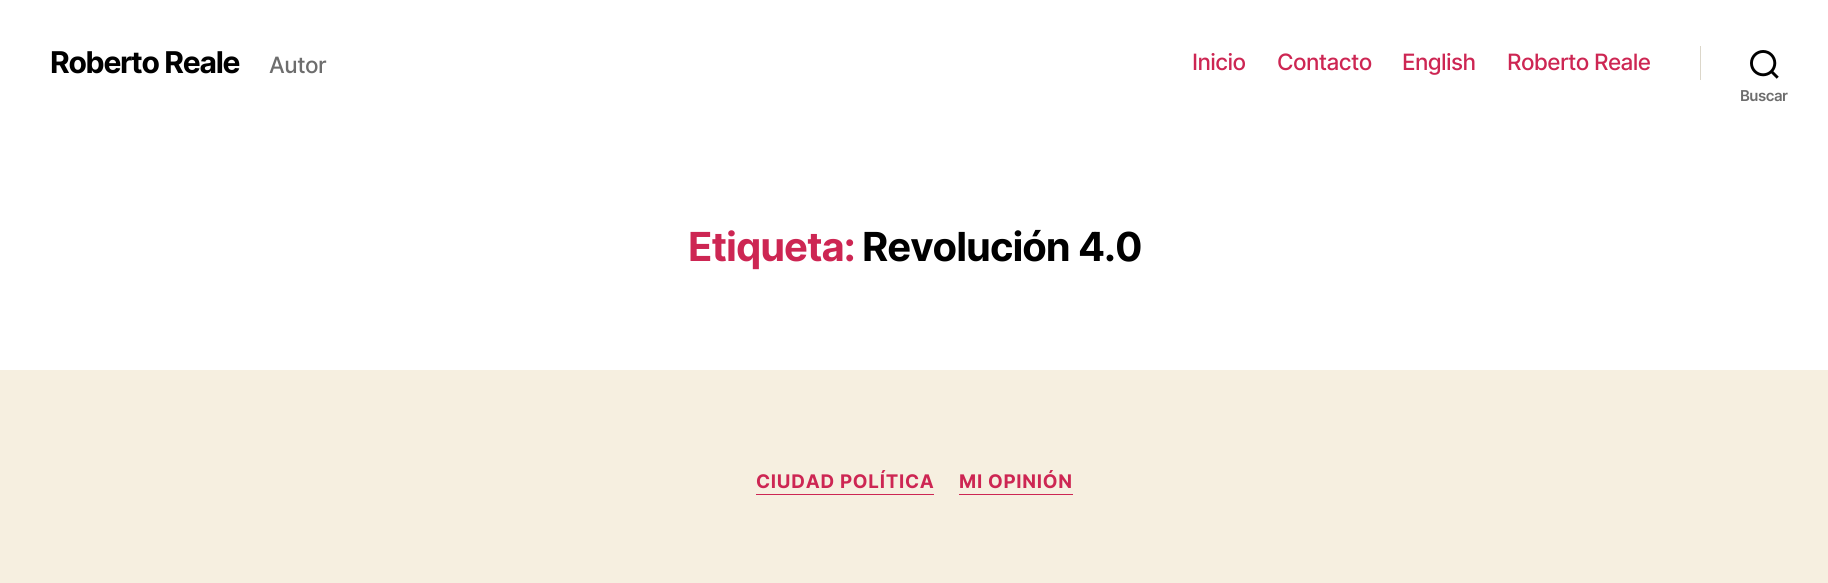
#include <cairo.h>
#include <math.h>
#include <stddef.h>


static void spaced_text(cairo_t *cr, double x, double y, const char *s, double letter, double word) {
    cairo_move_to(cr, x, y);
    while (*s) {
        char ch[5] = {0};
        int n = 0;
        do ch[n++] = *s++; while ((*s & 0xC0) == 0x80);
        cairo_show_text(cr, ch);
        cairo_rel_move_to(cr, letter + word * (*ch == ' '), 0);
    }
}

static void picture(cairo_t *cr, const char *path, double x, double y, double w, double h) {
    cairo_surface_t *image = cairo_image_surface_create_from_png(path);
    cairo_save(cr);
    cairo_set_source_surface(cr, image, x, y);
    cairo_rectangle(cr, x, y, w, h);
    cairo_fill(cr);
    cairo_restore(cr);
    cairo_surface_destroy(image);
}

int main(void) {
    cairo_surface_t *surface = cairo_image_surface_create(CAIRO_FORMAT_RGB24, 1828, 583);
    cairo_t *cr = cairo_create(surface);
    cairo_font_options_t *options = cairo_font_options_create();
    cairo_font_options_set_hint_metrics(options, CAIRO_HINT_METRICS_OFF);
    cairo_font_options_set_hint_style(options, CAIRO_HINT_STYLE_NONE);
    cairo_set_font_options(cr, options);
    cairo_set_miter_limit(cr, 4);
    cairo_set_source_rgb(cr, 0.961, 0.937, 0.878);
    cairo_paint(cr);
    cairo_set_source_rgb(cr, 1, 1, 1);
    cairo_rectangle(cr, 0, 0, 1828, 370);
    cairo_fill(cr);
    cairo_select_font_face(cr, "Inter", CAIRO_FONT_SLANT_NORMAL, CAIRO_FONT_WEIGHT_BOLD);
    cairo_set_font_size(cr, 30);
    cairo_set_source_rgb(cr, 0, 0, 0);
    spaced_text(cr, 50, 73, "Roberto Reale", -1.25, 0);
    cairo_select_font_face(cr, "Inter Medium", CAIRO_FONT_SLANT_NORMAL, CAIRO_FONT_WEIGHT_NORMAL);
    cairo_set_font_size(cr, 22.5);
    cairo_set_source_rgb(cr, 0.427, 0.427, 0.427);
    spaced_text(cr, 269, 73, "Autor", -0.5, 0);
    cairo_set_source_rgb(cr, 0.804, 0.149, 0.325);
    spaced_text(cr, 1192, 70, "Inicio", -0.6, 0);
    spaced_text(cr, 1277, 70, "Contacto", -0.6, 0);
    spaced_text(cr, 1402, 70, "English", -0.6, 0);
    spaced_text(cr, 1507, 70, "Roberto Reale", -0.6, 0);
    cairo_set_source_rgb(cr, 0.863, 0.843, 0.792);
    cairo_rectangle(cr, 1700, 46, 1, 34);
    cairo_fill(cr);
    picture(cr, "img1.png", 1750, 50, 29, 29);
    cairo_select_font_face(cr, "Inter SemiBold", CAIRO_FONT_SLANT_NORMAL, CAIRO_FONT_WEIGHT_NORMAL);
    cairo_set_font_size(cr, 15);
    cairo_set_source_rgb(cr, 0.427, 0.427, 0.427);
    spaced_text(cr, 1740, 101, "Buscar", -0.5, 0);
    cairo_select_font_face(cr, "Inter", CAIRO_FONT_SLANT_NORMAL, CAIRO_FONT_WEIGHT_BOLD);
    cairo_set_font_size(cr, 40);
    cairo_set_source_rgb(cr, 0.804, 0.149, 0.325);
    spaced_text(cr, 688, 261, "Etiqueta:", -1, 0);
    cairo_set_source_rgb(cr, 0, 0, 0);
    spaced_text(cr, 862, 261, "Revolución 4.0", -1, 0);
    cairo_set_source_rgb(cr, 0.804, 0.149, 0.325);
    cairo_rectangle(cr, 756, 494, 178, 1);
    cairo_fill(cr);
    cairo_set_font_size(cr, 18.75);
    spaced_text(cr, 756, 488, "CIUDAD POLÍTICA", 0.75, 0);
    cairo_rectangle(cr, 959, 494, 114, 1);
    cairo_fill(cr);
    spaced_text(cr, 959, 488, "MI OPINIÓN", 0.75, 0);
    cairo_surface_write_to_png(surface, "page.png");
    cairo_font_options_destroy(options);
    cairo_destroy(cr);
    cairo_surface_destroy(surface);
    return 0;
}
